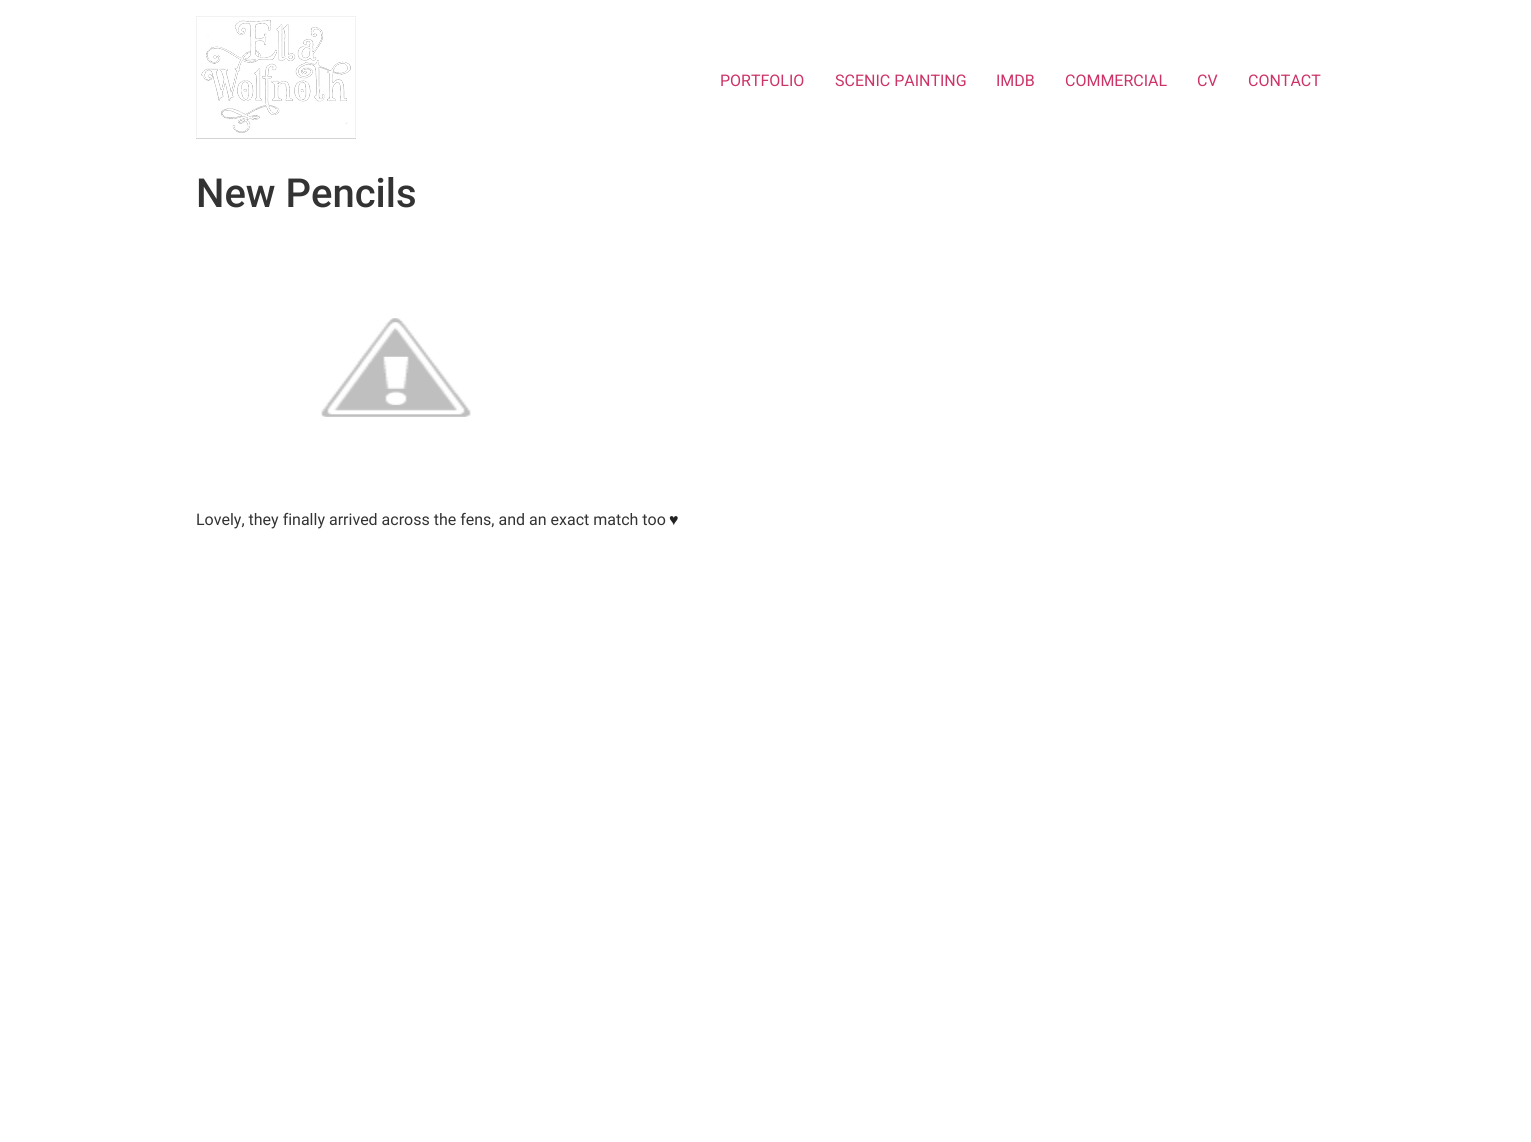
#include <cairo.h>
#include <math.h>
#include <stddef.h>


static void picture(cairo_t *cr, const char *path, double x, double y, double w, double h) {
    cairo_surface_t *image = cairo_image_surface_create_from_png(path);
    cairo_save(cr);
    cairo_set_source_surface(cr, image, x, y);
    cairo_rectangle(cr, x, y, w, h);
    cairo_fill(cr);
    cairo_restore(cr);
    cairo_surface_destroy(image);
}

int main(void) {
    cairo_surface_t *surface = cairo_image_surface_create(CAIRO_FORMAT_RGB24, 1531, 1142);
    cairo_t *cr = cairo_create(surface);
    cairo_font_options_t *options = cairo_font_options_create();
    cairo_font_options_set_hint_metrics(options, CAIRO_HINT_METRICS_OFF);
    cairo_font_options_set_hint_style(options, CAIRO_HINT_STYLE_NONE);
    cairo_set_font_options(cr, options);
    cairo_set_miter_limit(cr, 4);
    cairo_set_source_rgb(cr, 1, 1, 1);
    cairo_paint(cr);
    picture(cr, "img1.png", 196, 16, 160, 123);
    cairo_select_font_face(cr, "Roboto", CAIRO_FONT_SLANT_NORMAL, CAIRO_FONT_WEIGHT_NORMAL);
    cairo_set_font_size(cr, 16);
    cairo_set_source_rgb(cr, 0.8, 0.2, 0.4);
    cairo_move_to(cr, 720, 86);
    cairo_show_text(cr, "PORTFOLIO");
    cairo_move_to(cr, 835, 86);
    cairo_show_text(cr, "SCENIC PAINTING");
    cairo_move_to(cr, 996, 86);
    cairo_show_text(cr, "IMDB");
    cairo_move_to(cr, 1065, 86);
    cairo_show_text(cr, "COMMERCIAL");
    cairo_move_to(cr, 1197, 86);
    cairo_show_text(cr, "CV");
    cairo_move_to(cr, 1248, 86);
    cairo_show_text(cr, "CONTACT");
    cairo_select_font_face(cr, "Roboto Medium", CAIRO_FONT_SLANT_NORMAL, CAIRO_FONT_WEIGHT_NORMAL);
    cairo_set_font_size(cr, 40);
    cairo_set_source_rgb(cr, 0.2, 0.2, 0.2);
    cairo_move_to(cr, 196, 207);
    cairo_show_text(cr, "New Pencils");
    picture(cr, "img2.png", 321, 318, 150, 99);
    cairo_select_font_face(cr, "Roboto", CAIRO_FONT_SLANT_NORMAL, CAIRO_FONT_WEIGHT_NORMAL);
    cairo_set_font_size(cr, 16);
    cairo_move_to(cr, 196, 525);
    cairo_show_text(cr, "Lovely, they finally arrived across the fens, and an exact match too");
    cairo_select_font_face(cr, "Liberation Sans", CAIRO_FONT_SLANT_NORMAL, CAIRO_FONT_WEIGHT_BOLD);
    cairo_set_source_rgb(cr, 0.133, 0.133, 0.133);
    cairo_move_to(cr, 669, 525);
    cairo_show_text(cr, "♥");
    cairo_surface_write_to_png(surface, "page.png");
    cairo_font_options_destroy(options);
    cairo_destroy(cr);
    cairo_surface_destroy(surface);
    return 0;
}
